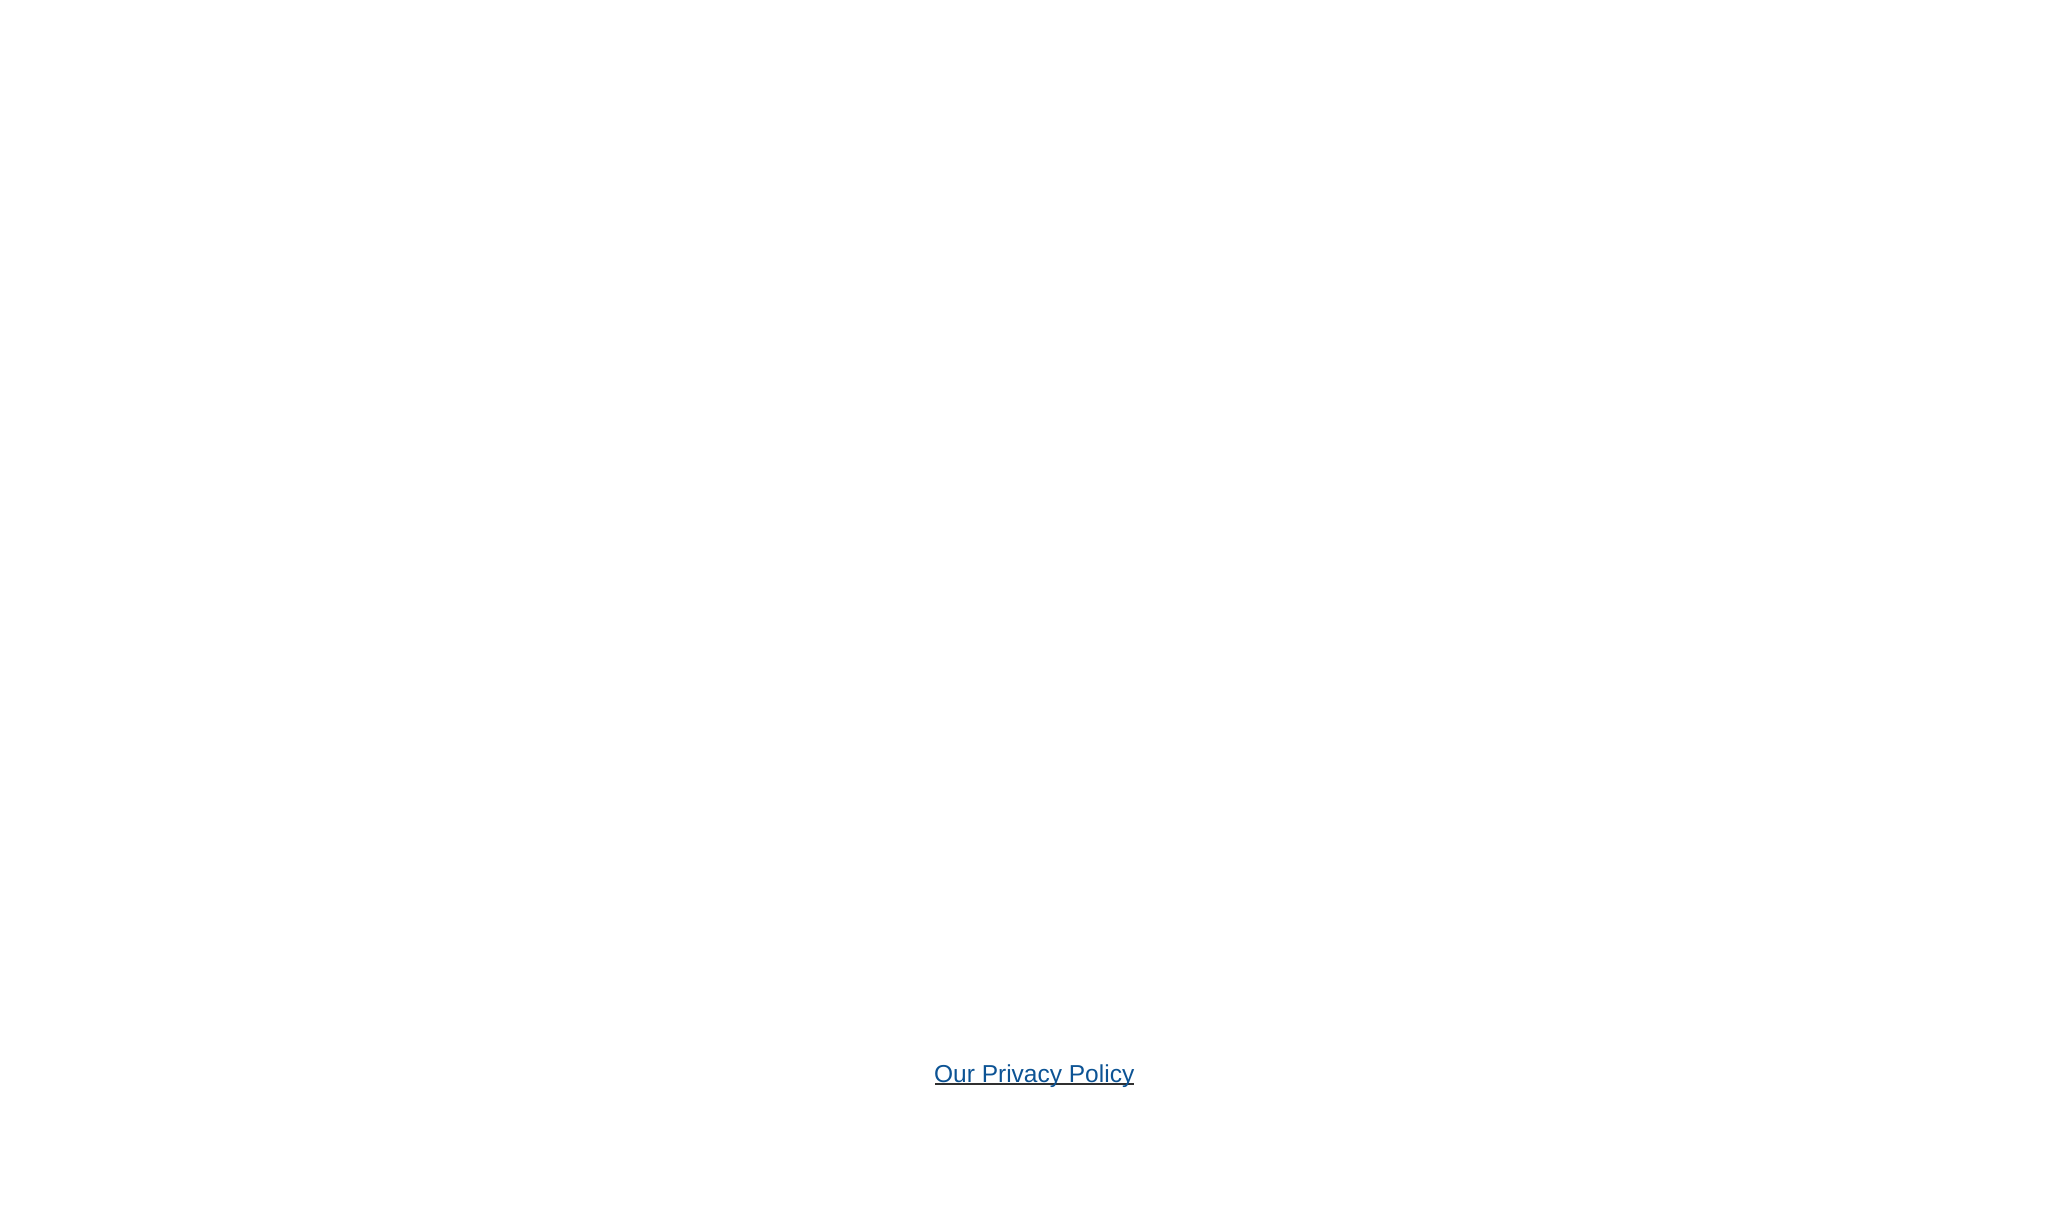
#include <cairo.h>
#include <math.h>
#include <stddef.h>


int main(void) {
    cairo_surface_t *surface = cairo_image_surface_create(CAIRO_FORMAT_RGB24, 2067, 1217);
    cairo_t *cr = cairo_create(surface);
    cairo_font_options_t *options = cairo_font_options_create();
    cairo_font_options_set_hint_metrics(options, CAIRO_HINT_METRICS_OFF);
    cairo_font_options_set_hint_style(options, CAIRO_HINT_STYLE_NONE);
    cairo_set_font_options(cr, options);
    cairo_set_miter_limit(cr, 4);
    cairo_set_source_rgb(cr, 1, 1, 1);
    cairo_paint(cr);
    cairo_set_source_rgb(cr, 0.188, 0.188, 0.188);
    cairo_rectangle(cr, 935, 1083, 199, 2);
    cairo_fill(cr);
    cairo_select_font_face(cr, "Liberation Sans", CAIRO_FONT_SLANT_NORMAL, CAIRO_FONT_WEIGHT_NORMAL);
    cairo_set_font_size(cr, 24.5);
    cairo_set_source_rgb(cr, 0.047, 0.325, 0.58);
    cairo_move_to(cr, 934, 1082);
    cairo_show_text(cr, "Our Privacy Policy");
    cairo_surface_write_to_png(surface, "page.png");
    cairo_font_options_destroy(options);
    cairo_destroy(cr);
    cairo_surface_destroy(surface);
    return 0;
}
